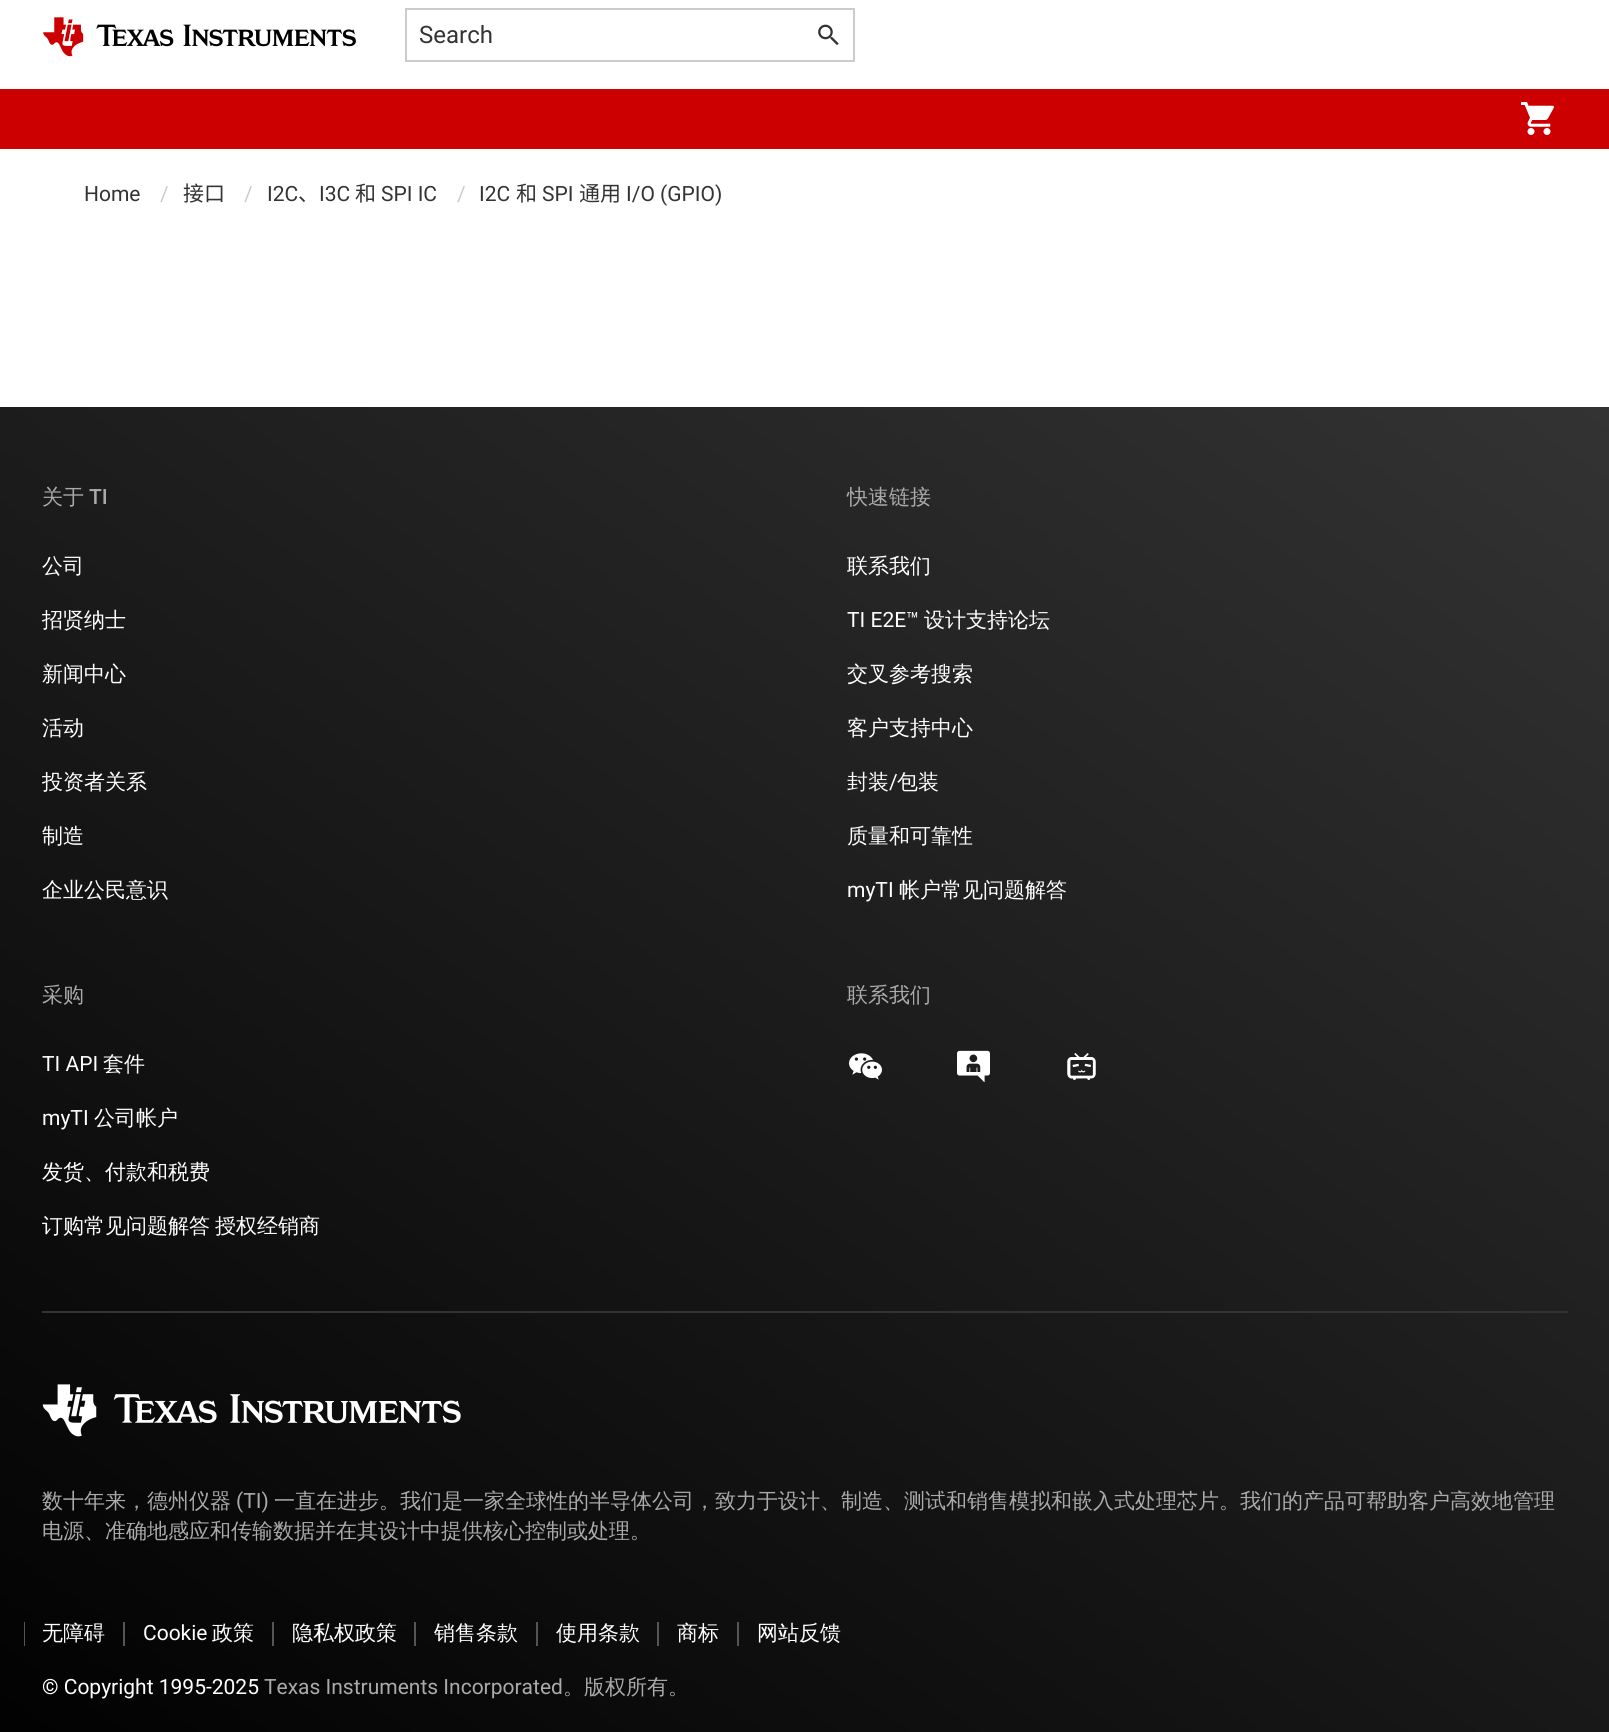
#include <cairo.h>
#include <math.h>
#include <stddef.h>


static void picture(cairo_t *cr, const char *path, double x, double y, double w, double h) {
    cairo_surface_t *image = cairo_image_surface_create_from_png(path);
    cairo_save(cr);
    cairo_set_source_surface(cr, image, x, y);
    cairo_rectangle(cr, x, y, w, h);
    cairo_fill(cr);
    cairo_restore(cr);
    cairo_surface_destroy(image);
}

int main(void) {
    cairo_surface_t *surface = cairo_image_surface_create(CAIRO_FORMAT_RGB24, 1609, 1732);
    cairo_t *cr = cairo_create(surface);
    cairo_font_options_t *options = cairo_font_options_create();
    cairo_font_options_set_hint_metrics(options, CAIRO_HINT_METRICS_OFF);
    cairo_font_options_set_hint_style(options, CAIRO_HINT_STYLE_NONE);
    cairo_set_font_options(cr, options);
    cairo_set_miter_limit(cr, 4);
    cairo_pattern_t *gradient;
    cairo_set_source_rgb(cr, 1, 1, 1);
    cairo_paint(cr);
    picture(cr, "img1.png", 43, 17, 313, 40);
    cairo_rectangle(cr, 406, 9, 448, 52);
    cairo_set_source_rgb(cr, 0.8, 0.8, 0.8);
    cairo_stroke(cr);
    cairo_select_font_face(cr, "Roboto", CAIRO_FONT_SLANT_NORMAL, CAIRO_FONT_WEIGHT_NORMAL);
    cairo_set_font_size(cr, 24);
    cairo_set_source_rgb(cr, 0.2, 0.2, 0.2);
    cairo_move_to(cr, 419, 43);
    cairo_show_text(cr, "Search");
    picture(cr, "img2.png", 818, 24, 21, 21);
    cairo_set_source_rgb(cr, 0.8, 0, 0);
    cairo_rectangle(cr, 0, 89, 1609, 60);
    cairo_fill(cr);
    picture(cr, "img3.png", 1521, 102, 33, 33);
    cairo_set_font_size(cr, 21);
    cairo_set_source_rgb(cr, 0.2, 0.2, 0.2);
    cairo_move_to(cr, 84, 201);
    cairo_show_text(cr, "Home");
    cairo_set_source_rgb(cr, 0.8, 0.8, 0.8);
    cairo_move_to(cr, 160, 201);
    cairo_show_text(cr, "/");
    cairo_select_font_face(cr, "Noto Sans SC", CAIRO_FONT_SLANT_NORMAL, CAIRO_FONT_WEIGHT_NORMAL);
    cairo_set_source_rgb(cr, 0.2, 0.2, 0.2);
    cairo_move_to(cr, 183, 201);
    cairo_show_text(cr, "接口");
    cairo_select_font_face(cr, "Roboto", CAIRO_FONT_SLANT_NORMAL, CAIRO_FONT_WEIGHT_NORMAL);
    cairo_set_source_rgb(cr, 0.8, 0.8, 0.8);
    cairo_move_to(cr, 244, 201);
    cairo_show_text(cr, "/");
    cairo_set_source_rgb(cr, 0.2, 0.2, 0.2);
    cairo_move_to(cr, 267, 201);
    cairo_show_text(cr, "I2C");
    cairo_select_font_face(cr, "Noto Sans SC", CAIRO_FONT_SLANT_NORMAL, CAIRO_FONT_WEIGHT_NORMAL);
    cairo_move_to(cr, 298, 201);
    cairo_show_text(cr, "、");
    cairo_select_font_face(cr, "Roboto", CAIRO_FONT_SLANT_NORMAL, CAIRO_FONT_WEIGHT_NORMAL);
    cairo_move_to(cr, 319, 201);
    cairo_show_text(cr, "I3C");
    cairo_select_font_face(cr, "Noto Sans SC", CAIRO_FONT_SLANT_NORMAL, CAIRO_FONT_WEIGHT_NORMAL);
    cairo_move_to(cr, 355, 201);
    cairo_show_text(cr, "和");
    cairo_select_font_face(cr, "Roboto", CAIRO_FONT_SLANT_NORMAL, CAIRO_FONT_WEIGHT_NORMAL);
    cairo_move_to(cr, 381, 201);
    cairo_show_text(cr, "SPI IC");
    cairo_set_source_rgb(cr, 0.8, 0.8, 0.8);
    cairo_move_to(cr, 457, 201);
    cairo_show_text(cr, "/");
    cairo_set_source_rgb(cr, 0.2, 0.2, 0.2);
    cairo_move_to(cr, 479, 201);
    cairo_show_text(cr, "I2C");
    cairo_select_font_face(cr, "Noto Sans SC", CAIRO_FONT_SLANT_NORMAL, CAIRO_FONT_WEIGHT_NORMAL);
    cairo_move_to(cr, 516, 201);
    cairo_show_text(cr, "和");
    cairo_select_font_face(cr, "Roboto", CAIRO_FONT_SLANT_NORMAL, CAIRO_FONT_WEIGHT_NORMAL);
    cairo_move_to(cr, 542, 201);
    cairo_show_text(cr, "SPI");
    cairo_select_font_face(cr, "Noto Sans SC", CAIRO_FONT_SLANT_NORMAL, CAIRO_FONT_WEIGHT_NORMAL);
    cairo_move_to(cr, 579, 201);
    cairo_show_text(cr, "通用");
    cairo_select_font_face(cr, "Roboto", CAIRO_FONT_SLANT_NORMAL, CAIRO_FONT_WEIGHT_NORMAL);
    cairo_move_to(cr, 626, 201);
    cairo_show_text(cr, "I/O (GPIO)");
    gradient = cairo_pattern_create_linear(209, 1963, 1401, 260);
    cairo_pattern_add_color_stop_rgba(gradient, 0, 0, 0, 0, 1);
    cairo_pattern_add_color_stop_rgba(gradient, 1, 0.2, 0.2, 0.2, 1);
    cairo_set_source(cr, gradient);
    cairo_pattern_destroy(gradient);
    cairo_rectangle(cr, 0, 407, 1609, 1325);
    cairo_fill(cr);
    cairo_select_font_face(cr, "WenQuanYi Zen Hei Medium", CAIRO_FONT_SLANT_NORMAL, CAIRO_FONT_WEIGHT_NORMAL);
    cairo_set_source_rgb(cr, 0.667, 0.667, 0.667);
    cairo_move_to(cr, 42, 504);
    cairo_show_text(cr, "关于");
    cairo_select_font_face(cr, "Roboto Medium", CAIRO_FONT_SLANT_NORMAL, CAIRO_FONT_WEIGHT_NORMAL);
    cairo_move_to(cr, 89, 504);
    cairo_show_text(cr, "TI");
    cairo_select_font_face(cr, "WenQuanYi Zen Hei Medium", CAIRO_FONT_SLANT_NORMAL, CAIRO_FONT_WEIGHT_NORMAL);
    cairo_set_source_rgb(cr, 1, 1, 1);
    cairo_move_to(cr, 42, 573);
    cairo_show_text(cr, "公司");
    cairo_move_to(cr, 42, 627);
    cairo_show_text(cr, "招贤纳士");
    cairo_move_to(cr, 42, 681);
    cairo_show_text(cr, "新闻中心");
    cairo_move_to(cr, 42, 735);
    cairo_show_text(cr, "活动");
    cairo_move_to(cr, 42, 789);
    cairo_show_text(cr, "投资者关系");
    cairo_move_to(cr, 42, 843);
    cairo_show_text(cr, "制造");
    cairo_move_to(cr, 42, 897);
    cairo_show_text(cr, "企业公民意识");
    cairo_set_source_rgb(cr, 0.667, 0.667, 0.667);
    cairo_move_to(cr, 847, 504);
    cairo_show_text(cr, "快速链接");
    cairo_set_source_rgb(cr, 1, 1, 1);
    cairo_move_to(cr, 847, 573);
    cairo_show_text(cr, "联系我们");
    cairo_select_font_face(cr, "Roboto", CAIRO_FONT_SLANT_NORMAL, CAIRO_FONT_WEIGHT_NORMAL);
    cairo_move_to(cr, 847, 627);
    cairo_show_text(cr, "TI E2E™");
    cairo_select_font_face(cr, "WenQuanYi Zen Hei Medium", CAIRO_FONT_SLANT_NORMAL, CAIRO_FONT_WEIGHT_NORMAL);
    cairo_move_to(cr, 924, 627);
    cairo_show_text(cr, "设计支持论坛");
    cairo_move_to(cr, 847, 681);
    cairo_show_text(cr, "交叉参考搜索");
    cairo_move_to(cr, 847, 735);
    cairo_show_text(cr, "客户支持中心");
    cairo_move_to(cr, 847, 789);
    cairo_show_text(cr, "封装");
    cairo_select_font_face(cr, "Roboto", CAIRO_FONT_SLANT_NORMAL, CAIRO_FONT_WEIGHT_NORMAL);
    cairo_move_to(cr, 889, 789);
    cairo_show_text(cr, "/");
    cairo_select_font_face(cr, "WenQuanYi Zen Hei Medium", CAIRO_FONT_SLANT_NORMAL, CAIRO_FONT_WEIGHT_NORMAL);
    cairo_move_to(cr, 897, 789);
    cairo_show_text(cr, "包装");
    cairo_move_to(cr, 847, 843);
    cairo_show_text(cr, "质量和可靠性");
    cairo_select_font_face(cr, "Roboto", CAIRO_FONT_SLANT_NORMAL, CAIRO_FONT_WEIGHT_NORMAL);
    cairo_move_to(cr, 847, 897);
    cairo_show_text(cr, "myTI");
    cairo_select_font_face(cr, "WenQuanYi Zen Hei Medium", CAIRO_FONT_SLANT_NORMAL, CAIRO_FONT_WEIGHT_NORMAL);
    cairo_move_to(cr, 899, 897);
    cairo_show_text(cr, "帐户常见问题解答");
    cairo_set_source_rgb(cr, 0.667, 0.667, 0.667);
    cairo_move_to(cr, 42, 1002);
    cairo_show_text(cr, "采购");
    cairo_select_font_face(cr, "Roboto", CAIRO_FONT_SLANT_NORMAL, CAIRO_FONT_WEIGHT_NORMAL);
    cairo_set_source_rgb(cr, 1, 1, 1);
    cairo_move_to(cr, 42, 1071);
    cairo_show_text(cr, "TI API");
    cairo_select_font_face(cr, "WenQuanYi Zen Hei Medium", CAIRO_FONT_SLANT_NORMAL, CAIRO_FONT_WEIGHT_NORMAL);
    cairo_move_to(cr, 103, 1071);
    cairo_show_text(cr, "套件");
    cairo_select_font_face(cr, "Roboto", CAIRO_FONT_SLANT_NORMAL, CAIRO_FONT_WEIGHT_NORMAL);
    cairo_move_to(cr, 42, 1125);
    cairo_show_text(cr, "myTI");
    cairo_select_font_face(cr, "WenQuanYi Zen Hei Medium", CAIRO_FONT_SLANT_NORMAL, CAIRO_FONT_WEIGHT_NORMAL);
    cairo_move_to(cr, 94, 1125);
    cairo_show_text(cr, "公司帐户");
    cairo_move_to(cr, 42, 1179);
    cairo_show_text(cr, "发货、付款和税费");
    cairo_move_to(cr, 42, 1233);
    cairo_show_text(cr, "订购常见问题解答");
    cairo_move_to(cr, 215, 1233);
    cairo_show_text(cr, "授权经销商");
    cairo_set_source_rgb(cr, 0.667, 0.667, 0.667);
    cairo_move_to(cr, 847, 1002);
    cairo_show_text(cr, "联系我们");
    picture(cr, "img4.png", 849, 1053, 33, 27);
    picture(cr, "img5.png", 957, 1050, 33, 33);
    picture(cr, "img6.png", 1067, 1053, 29, 27);
    cairo_set_source_rgb(cr, 0.2, 0.2, 0.2);
    cairo_rectangle(cr, 42, 1311, 1526, 2);
    cairo_fill(cr);
    picture(cr, "img7.png", 42, 1384, 419, 53);
    cairo_set_source_rgb(cr, 0.667, 0.667, 0.667);
    cairo_move_to(cr, 42, 1508);
    cairo_show_text(cr, "数十年来，德州仪器");
    cairo_select_font_face(cr, "Roboto", CAIRO_FONT_SLANT_NORMAL, CAIRO_FONT_WEIGHT_NORMAL);
    cairo_move_to(cr, 236, 1508);
    cairo_show_text(cr, "(TI)");
    cairo_select_font_face(cr, "WenQuanYi Zen Hei Medium", CAIRO_FONT_SLANT_NORMAL, CAIRO_FONT_WEIGHT_NORMAL);
    cairo_move_to(cr, 274, 1508);
    cairo_show_text(cr, "一直在进步。我们是一家全球性的半导体公司，致力于设计、制造、测试和销售模拟和嵌入式处理芯片。我们的产品可帮助客户高效地管理");
    cairo_move_to(cr, 42, 1538);
    cairo_show_text(cr, "电源、准确地感应和传输数据并在其设计中提供核心控制或处理。");
    cairo_set_source_rgb(cr, 1, 1, 1);
    cairo_move_to(cr, 42, 1640);
    cairo_show_text(cr, "无障碍");
    cairo_set_source_rgb(cr, 0.333, 0.333, 0.333);
    cairo_rectangle(cr, 24, 1622, 1, 24);
    cairo_fill(cr);
    cairo_select_font_face(cr, "Roboto", CAIRO_FONT_SLANT_NORMAL, CAIRO_FONT_WEIGHT_NORMAL);
    cairo_set_source_rgb(cr, 1, 1, 1);
    cairo_move_to(cr, 143, 1640);
    cairo_show_text(cr, "Cookie");
    cairo_set_source_rgb(cr, 0.333, 0.333, 0.333);
    cairo_rectangle(cr, 123, 1622, 2, 24);
    cairo_fill(cr);
    cairo_select_font_face(cr, "WenQuanYi Zen Hei Medium", CAIRO_FONT_SLANT_NORMAL, CAIRO_FONT_WEIGHT_NORMAL);
    cairo_set_source_rgb(cr, 1, 1, 1);
    cairo_move_to(cr, 212, 1640);
    cairo_show_text(cr, "政策");
    cairo_move_to(cr, 292, 1640);
    cairo_show_text(cr, "隐私权政策");
    cairo_set_source_rgb(cr, 0.333, 0.333, 0.333);
    cairo_rectangle(cr, 272, 1622, 2, 24);
    cairo_fill(cr);
    cairo_set_source_rgb(cr, 1, 1, 1);
    cairo_move_to(cr, 434, 1640);
    cairo_show_text(cr, "销售条款");
    cairo_set_source_rgb(cr, 0.333, 0.333, 0.333);
    cairo_rectangle(cr, 414, 1622, 2, 24);
    cairo_fill(cr);
    cairo_set_source_rgb(cr, 1, 1, 1);
    cairo_move_to(cr, 556, 1640);
    cairo_show_text(cr, "使用条款");
    cairo_set_source_rgb(cr, 0.333, 0.333, 0.333);
    cairo_rectangle(cr, 536, 1622, 2, 24);
    cairo_fill(cr);
    cairo_set_source_rgb(cr, 1, 1, 1);
    cairo_move_to(cr, 677, 1640);
    cairo_show_text(cr, "商标");
    cairo_set_source_rgb(cr, 0.333, 0.333, 0.333);
    cairo_rectangle(cr, 657, 1622, 2, 24);
    cairo_fill(cr);
    cairo_set_source_rgb(cr, 1, 1, 1);
    cairo_move_to(cr, 757, 1640);
    cairo_show_text(cr, "网站反馈");
    cairo_set_source_rgb(cr, 0.333, 0.333, 0.333);
    cairo_rectangle(cr, 737, 1622, 2, 24);
    cairo_fill(cr);
    cairo_select_font_face(cr, "Roboto", CAIRO_FONT_SLANT_NORMAL, CAIRO_FONT_WEIGHT_NORMAL);
    cairo_set_source_rgb(cr, 1, 1, 1);
    cairo_move_to(cr, 42, 1694);
    cairo_show_text(cr, "© Copyright 1995-2025");
    cairo_set_source_rgb(cr, 0.667, 0.667, 0.667);
    cairo_move_to(cr, 264, 1694);
    cairo_show_text(cr, "Texas Instruments Incorporated");
    cairo_select_font_face(cr, "WenQuanYi Zen Hei Medium", CAIRO_FONT_SLANT_NORMAL, CAIRO_FONT_WEIGHT_NORMAL);
    cairo_move_to(cr, 563, 1694);
    cairo_show_text(cr, "。版权所有。");
    cairo_surface_write_to_png(surface, "page.png");
    cairo_font_options_destroy(options);
    cairo_destroy(cr);
    cairo_surface_destroy(surface);
    return 0;
}
